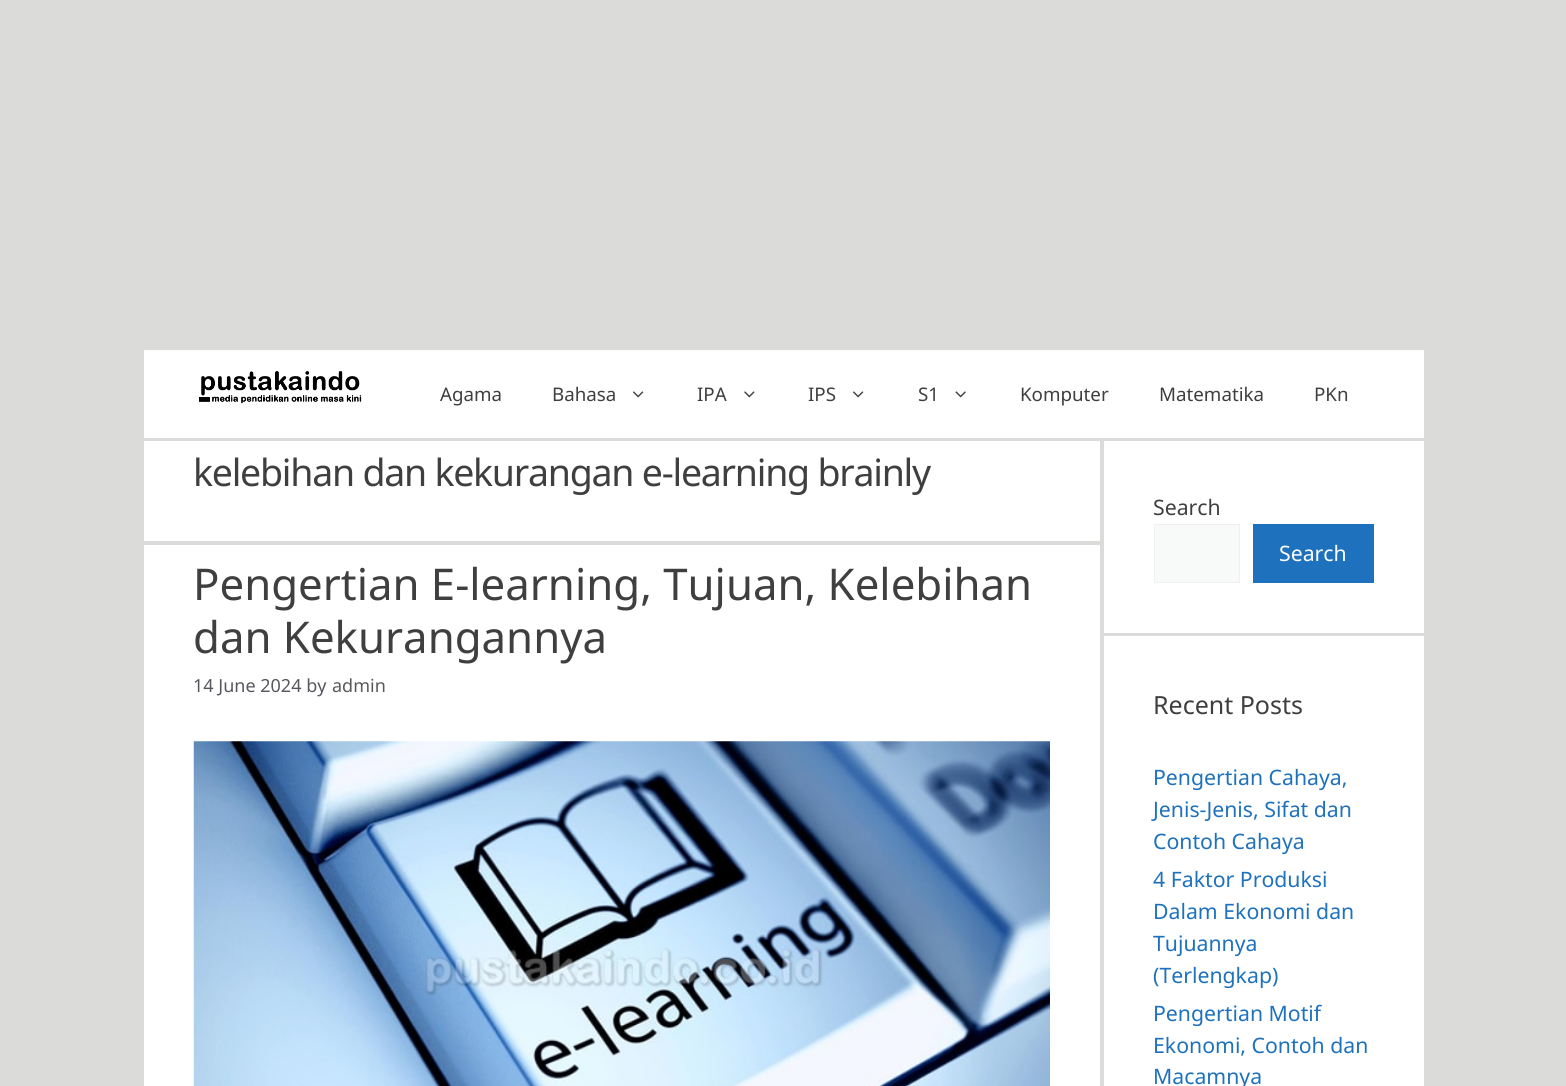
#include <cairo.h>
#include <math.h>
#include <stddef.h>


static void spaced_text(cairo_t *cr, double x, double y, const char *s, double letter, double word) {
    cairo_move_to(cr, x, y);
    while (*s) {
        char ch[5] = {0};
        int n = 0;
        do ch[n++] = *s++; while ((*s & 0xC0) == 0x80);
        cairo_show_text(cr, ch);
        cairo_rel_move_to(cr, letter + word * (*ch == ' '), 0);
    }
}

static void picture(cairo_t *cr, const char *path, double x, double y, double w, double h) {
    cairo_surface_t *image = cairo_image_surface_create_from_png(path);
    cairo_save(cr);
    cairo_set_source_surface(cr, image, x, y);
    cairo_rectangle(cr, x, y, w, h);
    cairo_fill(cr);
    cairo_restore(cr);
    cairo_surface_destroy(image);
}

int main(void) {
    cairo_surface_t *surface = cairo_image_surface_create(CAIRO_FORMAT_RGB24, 1566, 1086);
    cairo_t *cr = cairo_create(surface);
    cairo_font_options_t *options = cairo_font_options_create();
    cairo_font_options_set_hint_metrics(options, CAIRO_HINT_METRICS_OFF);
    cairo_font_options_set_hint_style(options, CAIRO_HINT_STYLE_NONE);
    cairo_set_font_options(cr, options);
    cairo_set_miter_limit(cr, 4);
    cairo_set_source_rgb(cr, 0.859, 0.859, 0.851);
    cairo_paint(cr);
    cairo_set_source_rgb(cr, 1, 1, 1);
    cairo_rectangle(cr, 144, 350, 1280, 88);
    cairo_fill(cr);
    picture(cr, "img1.png", 199, 371, 163, 33);
    cairo_select_font_face(cr, "Noto Sans", CAIRO_FONT_SLANT_NORMAL, CAIRO_FONT_WEIGHT_NORMAL);
    cairo_set_font_size(cr, 18.75);
    cairo_set_source_rgb(cr, 0.247, 0.247, 0.247);
    cairo_move_to(cr, 440, 401);
    cairo_show_text(cr, "Agama");
    cairo_move_to(cr, 552, 401);
    cairo_show_text(cr, "Bahasa");
    picture(cr, "img2.png", 633, 391, 11, 7);
    cairo_move_to(cr, 697, 401);
    cairo_show_text(cr, "IPA");
    picture(cr, "img3.png", 744, 391, 11, 7);
    cairo_move_to(cr, 808, 401);
    cairo_show_text(cr, "IPS");
    picture(cr, "img2.png", 853, 391, 11, 7);
    cairo_move_to(cr, 918, 401);
    cairo_show_text(cr, "S1");
    picture(cr, "img4.png", 955, 391, 11, 7);
    cairo_move_to(cr, 1020, 401);
    cairo_show_text(cr, "Komputer");
    cairo_move_to(cr, 1159, 401);
    cairo_show_text(cr, "Matematika");
    cairo_move_to(cr, 1314, 401);
    cairo_show_text(cr, "PKn");
    cairo_set_source_rgb(cr, 1, 1, 1);
    cairo_rectangle(cr, 144, 441, 956, 100);
    cairo_fill(cr);
    cairo_set_font_size(cr, 37.5);
    cairo_set_source_rgb(cr, 0.247, 0.247, 0.247);
    spaced_text(cr, 193, 486, "kelebihan dan kekurangan e-learning brainly", -1.25, 0);
    cairo_set_source_rgb(cr, 1, 1, 1);
    cairo_rectangle(cr, 144, 545, 956, 541);
    cairo_fill(cr);
    cairo_set_font_size(cr, 43.75);
    cairo_set_source_rgb(cr, 0.247, 0.247, 0.247);
    cairo_move_to(cr, 193, 600);
    cairo_show_text(cr, "Pengertian E-learning, Tujuan, Kelebihan");
    cairo_move_to(cr, 193, 653);
    cairo_show_text(cr, "dan Kekurangannya");
    cairo_set_font_size(cr, 18);
    cairo_set_source_rgb(cr, 0.341, 0.341, 0.376);
    cairo_move_to(cr, 193, 692);
    cairo_show_text(cr, "14 June 2024 by");
    cairo_set_source_rgb(cr, 0.349, 0.349, 0.349);
    cairo_move_to(cr, 332, 692);
    cairo_show_text(cr, "admin");
    picture(cr, "img5.png", 193, 741, 857, 345);
    cairo_set_source_rgb(cr, 1, 1, 1);
    cairo_rectangle(cr, 1104, 441, 320, 192);
    cairo_fill(cr);
    cairo_set_font_size(cr, 21.25);
    cairo_set_source_rgb(cr, 0.247, 0.247, 0.247);
    cairo_move_to(cr, 1153, 515);
    cairo_show_text(cr, "Search");
    cairo_set_source_rgb(cr, 0.969, 0.973, 0.976);
    cairo_rectangle(cr, 1154.5, 524.5, 85, 58);
    cairo_fill_preserve(cr);
    cairo_set_source_rgb(cr, 0.941, 0.941, 0.941);
    cairo_set_line_width(cr, 1);
    cairo_stroke(cr);
    cairo_set_source_rgb(cr, 0.118, 0.447, 0.741);
    cairo_rectangle(cr, 1253, 524, 121, 59);
    cairo_fill(cr);
    cairo_set_source_rgb(cr, 1, 1, 1);
    cairo_move_to(cr, 1279, 561);
    cairo_show_text(cr, "Search");
    cairo_rectangle(cr, 1104, 636, 320, 450);
    cairo_fill(cr);
    cairo_set_font_size(cr, 25);
    cairo_set_source_rgb(cr, 0.247, 0.247, 0.247);
    cairo_move_to(cr, 1153, 714);
    cairo_show_text(cr, "Recent Posts");
    cairo_set_font_size(cr, 21.25);
    cairo_set_source_rgb(cr, 0.118, 0.447, 0.741);
    cairo_move_to(cr, 1153, 785);
    cairo_show_text(cr, "Pengertian Cahaya,");
    cairo_move_to(cr, 1153, 817);
    cairo_show_text(cr, "Jenis-Jenis, Sifat dan");
    cairo_move_to(cr, 1153, 849);
    cairo_show_text(cr, "Contoh Cahaya");
    cairo_move_to(cr, 1153, 887);
    cairo_show_text(cr, "4 Faktor Produksi");
    cairo_move_to(cr, 1153, 919);
    cairo_show_text(cr, "Dalam Ekonomi dan");
    cairo_move_to(cr, 1153, 951);
    cairo_show_text(cr, "Tujuannya");
    cairo_move_to(cr, 1153, 983);
    cairo_show_text(cr, "(Terlengkap)");
    cairo_move_to(cr, 1153, 1021);
    cairo_show_text(cr, "Pengertian Motif");
    cairo_move_to(cr, 1153, 1053);
    cairo_show_text(cr, "Ekonomi, Contoh dan");
    cairo_move_to(cr, 1153, 1084);
    cairo_show_text(cr, "Macamnya");
    cairo_surface_write_to_png(surface, "page.png");
    cairo_font_options_destroy(options);
    cairo_destroy(cr);
    cairo_surface_destroy(surface);
    return 0;
}
